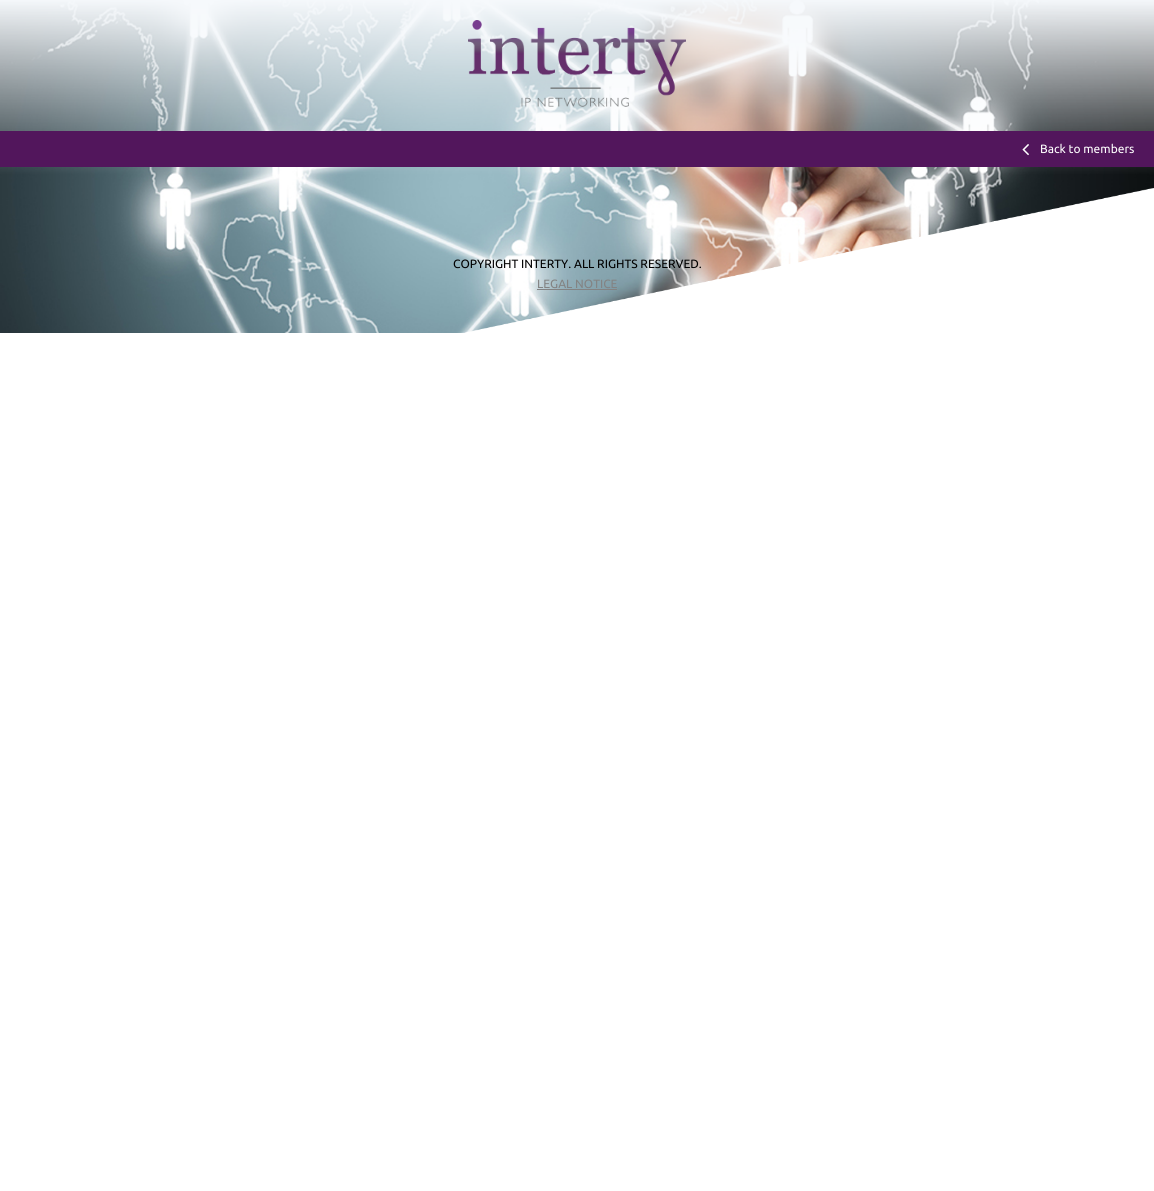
#include <cairo.h>
#include <math.h>
#include <stddef.h>


static void picture(cairo_t *cr, const char *path, double x, double y, double w, double h) {
    cairo_surface_t *image = cairo_image_surface_create_from_png(path);
    cairo_save(cr);
    cairo_set_source_surface(cr, image, x, y);
    cairo_rectangle(cr, x, y, w, h);
    cairo_fill(cr);
    cairo_restore(cr);
    cairo_surface_destroy(image);
}

int main(void) {
    cairo_surface_t *surface = cairo_image_surface_create(CAIRO_FORMAT_RGB24, 1154, 1191);
    cairo_t *cr = cairo_create(surface);
    cairo_font_options_t *options = cairo_font_options_create();
    cairo_font_options_set_hint_metrics(options, CAIRO_HINT_METRICS_OFF);
    cairo_font_options_set_hint_style(options, CAIRO_HINT_STYLE_NONE);
    cairo_set_font_options(cr, options);
    cairo_set_miter_limit(cr, 4);
    cairo_set_source_rgb(cr, 1, 1, 1);
    cairo_paint(cr);
    picture(cr, "img1.png", 0, 0, 1154, 333);
    picture(cr, "img2.png", 468, 20, 218, 87);
    cairo_set_source_rgb(cr, 0.322, 0.086, 0.361);
    cairo_rectangle(cr, 0, 131, 1154, 36);
    cairo_fill(cr);
    picture(cr, "img3.png", 1022, 144, 7, 12);
    cairo_select_font_face(cr, "Ubuntu", CAIRO_FONT_SLANT_NORMAL, CAIRO_FONT_WEIGHT_NORMAL);
    cairo_set_font_size(cr, 12);
    cairo_set_source_rgb(cr, 1, 1, 1);
    cairo_move_to(cr, 1040, 153);
    cairo_show_text(cr, "Back to members");
    cairo_set_source_rgb(cr, 0, 0, 0);
    cairo_move_to(cr, 453, 268);
    cairo_show_text(cr, "COPYRIGHT INTERTY. ALL RIGHTS RESERVED.");
    cairo_set_source_rgb(cr, 0.514, 0.514, 0.514);
    cairo_move_to(cr, 537, 288);
    cairo_show_text(cr, "LEGAL NOTICE");
    cairo_rectangle(cr, 537, 289, 80, 1);
    cairo_fill(cr);
    cairo_surface_write_to_png(surface, "page.png");
    cairo_font_options_destroy(options);
    cairo_destroy(cr);
    cairo_surface_destroy(surface);
    return 0;
}
